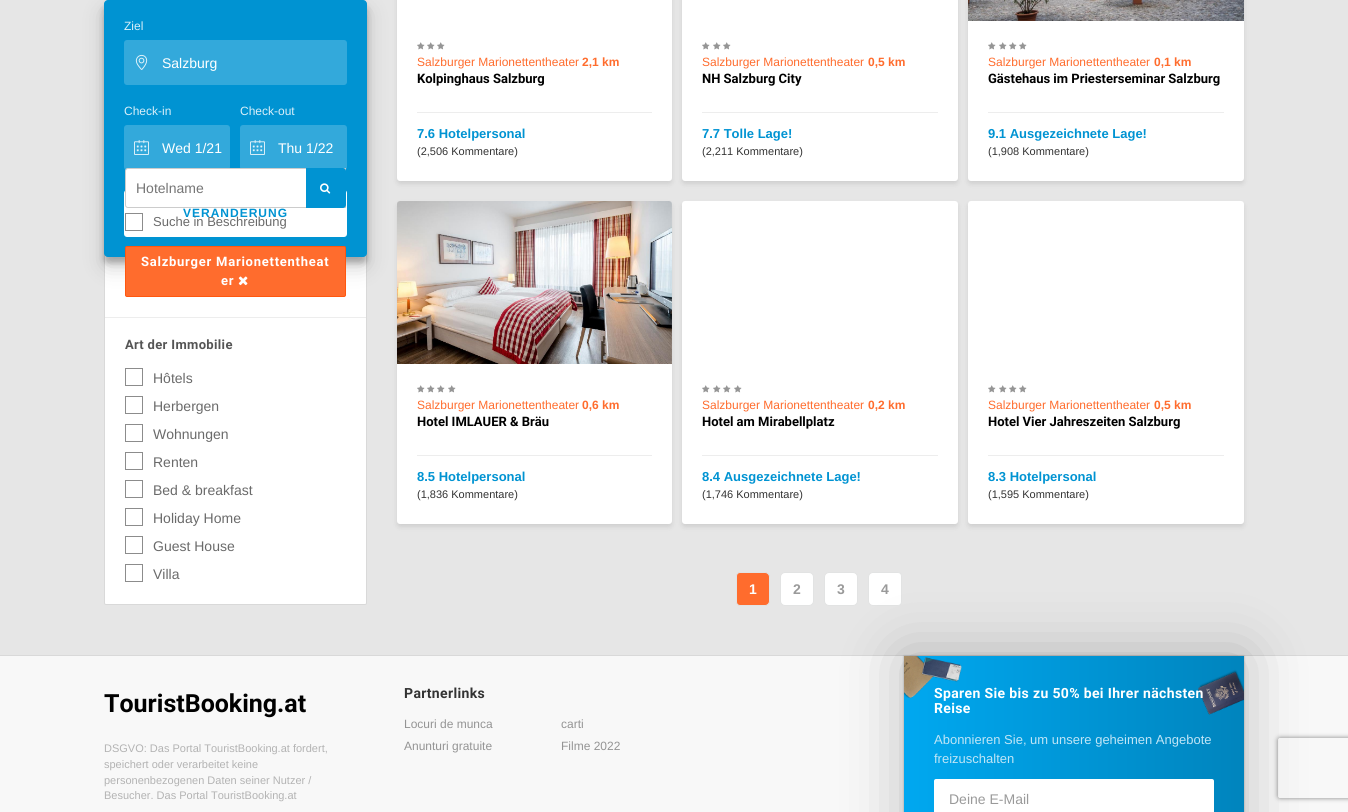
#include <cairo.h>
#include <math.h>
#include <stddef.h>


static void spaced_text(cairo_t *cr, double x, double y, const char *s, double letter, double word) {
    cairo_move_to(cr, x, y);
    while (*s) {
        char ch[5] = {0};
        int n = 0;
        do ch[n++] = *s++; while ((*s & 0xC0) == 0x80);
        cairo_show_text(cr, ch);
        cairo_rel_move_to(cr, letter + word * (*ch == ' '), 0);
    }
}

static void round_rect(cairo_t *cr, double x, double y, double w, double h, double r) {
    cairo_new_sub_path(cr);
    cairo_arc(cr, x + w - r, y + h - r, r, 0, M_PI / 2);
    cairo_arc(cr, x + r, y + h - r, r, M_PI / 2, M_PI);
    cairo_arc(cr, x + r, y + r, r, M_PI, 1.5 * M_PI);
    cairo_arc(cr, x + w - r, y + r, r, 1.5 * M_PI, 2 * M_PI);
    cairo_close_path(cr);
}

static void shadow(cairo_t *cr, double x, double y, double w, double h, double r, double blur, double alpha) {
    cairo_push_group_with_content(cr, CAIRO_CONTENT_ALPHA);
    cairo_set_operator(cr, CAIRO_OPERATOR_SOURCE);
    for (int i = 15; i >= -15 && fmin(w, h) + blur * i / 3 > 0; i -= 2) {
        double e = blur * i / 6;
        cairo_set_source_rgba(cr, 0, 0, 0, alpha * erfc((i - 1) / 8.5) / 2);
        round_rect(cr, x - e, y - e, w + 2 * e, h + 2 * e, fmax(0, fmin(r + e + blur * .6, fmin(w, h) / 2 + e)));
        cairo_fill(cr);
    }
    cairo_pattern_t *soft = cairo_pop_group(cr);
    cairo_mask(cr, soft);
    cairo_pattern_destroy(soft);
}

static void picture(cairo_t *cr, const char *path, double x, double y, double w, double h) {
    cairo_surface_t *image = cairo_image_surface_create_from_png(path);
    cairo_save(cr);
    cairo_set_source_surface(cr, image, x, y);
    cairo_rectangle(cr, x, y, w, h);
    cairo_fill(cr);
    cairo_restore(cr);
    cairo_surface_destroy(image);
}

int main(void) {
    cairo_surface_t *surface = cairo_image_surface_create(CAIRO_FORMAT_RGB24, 1348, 812);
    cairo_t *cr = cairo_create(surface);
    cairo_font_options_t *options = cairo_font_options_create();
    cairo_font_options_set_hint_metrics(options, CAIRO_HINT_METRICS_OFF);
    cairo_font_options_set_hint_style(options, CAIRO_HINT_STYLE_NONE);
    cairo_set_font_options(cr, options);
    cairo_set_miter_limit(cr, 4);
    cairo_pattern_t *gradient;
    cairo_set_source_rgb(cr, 0.902, 0.902, 0.902);
    cairo_paint(cr);
    cairo_set_source_rgb(cr, 1, 1, 1);
    round_rect(cr, 104.5, 118.5, 262, 486, 1.5);
    cairo_fill_preserve(cr);
    cairo_set_source_rgb(cr, 0.851, 0.851, 0.851);
    cairo_set_line_width(cr, 1);
    cairo_stroke(cr);
    cairo_set_source_rgb(cr, 0, 0, 0);
    shadow(cr, 104, 6, 263, 257, 4, 3, 0.23);
    shadow(cr, 104, 10, 263, 257, 4, 10, 0.19);
    cairo_set_source_rgb(cr, 0, 0.576, 0.824);
    round_rect(cr, 104, 0, 263, 257, 4);
    cairo_fill(cr);
    cairo_select_font_face(cr, "Liberation Sans", CAIRO_FONT_SLANT_NORMAL, CAIRO_FONT_WEIGHT_NORMAL);
    cairo_set_font_size(cr, 12);
    cairo_set_source_rgb(cr, 0.851, 0.937, 0.973);
    cairo_move_to(cr, 124, 30);
    cairo_show_text(cr, "Ziel");
    cairo_set_source_rgb(cr, 0.2, 0.663, 0.859);
    round_rect(cr, 124, 40, 223, 45, 3);
    cairo_fill(cr);
    picture(cr, "img1.png", 135, 54, 13, 16);
    cairo_set_font_size(cr, 14);
    cairo_set_source_rgb(cr, 1, 1, 1);
    cairo_move_to(cr, 162, 68);
    cairo_show_text(cr, "Salzburg");
    cairo_set_font_size(cr, 12);
    cairo_set_source_rgb(cr, 0.851, 0.937, 0.973);
    cairo_move_to(cr, 124, 115);
    cairo_show_text(cr, "Check-in");
    cairo_set_source_rgb(cr, 0.2, 0.663, 0.859);
    round_rect(cr, 124, 125, 106, 45, 3);
    cairo_fill(cr);
    picture(cr, "img2.png", 134, 140, 15, 15);
    cairo_set_font_size(cr, 14);
    cairo_set_source_rgb(cr, 1, 1, 1);
    cairo_move_to(cr, 162, 153);
    cairo_show_text(cr, "Wed 1/21");
    cairo_set_font_size(cr, 12);
    cairo_set_source_rgb(cr, 0.851, 0.937, 0.973);
    cairo_move_to(cr, 240, 115);
    cairo_show_text(cr, "Check-out");
    cairo_set_source_rgb(cr, 0.2, 0.663, 0.859);
    round_rect(cr, 240, 125, 107, 45, 3);
    cairo_fill(cr);
    picture(cr, "img2.png", 250, 140, 15, 15);
    cairo_set_font_size(cr, 14);
    cairo_set_source_rgb(cr, 1, 1, 1);
    cairo_move_to(cr, 278, 153);
    cairo_show_text(cr, "Thu 1/22");
    round_rect(cr, 124, 190, 223, 47, 3);
    cairo_fill(cr);
    cairo_select_font_face(cr, "Liberation Sans", CAIRO_FONT_SLANT_NORMAL, CAIRO_FONT_WEIGHT_BOLD);
    cairo_set_font_size(cr, 12);
    cairo_set_source_rgb(cr, 0, 0.576, 0.824);
    spaced_text(cr, 183, 217, "VERÄNDERUNG", 1, 0);
    cairo_set_source_rgb(cr, 0.929, 0.929, 0.929);
    cairo_rectangle(cr, 105, 317, 261, 1);
    cairo_fill(cr);
    cairo_set_source_rgb(cr, 1, 1, 1);
    cairo_new_path(cr);
    cairo_move_to(cr, 128, 168.5);
    cairo_line_to(cr, 345.5, 168.5);
    cairo_line_to(cr, 345.5, 207.5);
    cairo_line_to(cr, 128, 207.5);
    cairo_curve_to(cr, 126.5, 207.5, 125.5, 206.5, 125.5, 205);
    cairo_line_to(cr, 125.5, 171);
    cairo_curve_to(cr, 125.5, 169.5, 126.5, 168.5, 128, 168.5);
    cairo_close_path(cr);
    cairo_fill_preserve(cr);
    cairo_set_source_rgb(cr, 0.8, 0.8, 0.8);
    cairo_stroke(cr);
    cairo_select_font_face(cr, "Liberation Sans", CAIRO_FONT_SLANT_NORMAL, CAIRO_FONT_WEIGHT_NORMAL);
    cairo_set_font_size(cr, 14);
    cairo_set_source_rgb(cr, 0.459, 0.459, 0.459);
    cairo_move_to(cr, 136, 193);
    cairo_show_text(cr, "Hotelname");
    cairo_set_source_rgb(cr, 0, 0.576, 0.824);
    cairo_new_path(cr);
    cairo_move_to(cr, 306, 168);
    cairo_line_to(cr, 343, 168);
    cairo_curve_to(cr, 344.5, 168, 346, 169.5, 346, 171);
    cairo_line_to(cr, 346, 205);
    cairo_curve_to(cr, 346, 206.5, 344.5, 208, 343, 208);
    cairo_line_to(cr, 306, 208);
    cairo_close_path(cr);
    cairo_fill(cr);
    picture(cr, "img3.png", 320, 183, 11, 11);
    cairo_rectangle(cr, 125.5, 213.5, 17, 17);
    cairo_set_source_rgb(cr, 0.549, 0.549, 0.549);
    cairo_stroke(cr);
    cairo_set_font_size(cr, 13);
    cairo_set_source_rgb(cr, 0.416, 0.416, 0.416);
    cairo_move_to(cr, 153, 226);
    cairo_show_text(cr, "Suche in Beschreibung");
    cairo_set_source_rgb(cr, 1, 0.424, 0.176);
    round_rect(cr, 125.5, 246.5, 220, 50, 1.5);
    cairo_fill_preserve(cr);
    cairo_set_source_rgb(cr, 1, 0.341, 0.059);
    cairo_stroke(cr);
    cairo_select_font_face(cr, "Roboto", CAIRO_FONT_SLANT_NORMAL, CAIRO_FONT_WEIGHT_BOLD);
    cairo_set_source_rgb(cr, 1, 1, 1);
    spaced_text(cr, 141, 266, "Salzburger Marionettentheat", 0.75, 0);
    spaced_text(cr, 221, 285, "er", 0.75, 0);
    picture(cr, "img4.png", 238, 276, 10, 10);
    cairo_set_source_rgb(cr, 0.333, 0.333, 0.333);
    spaced_text(cr, 125, 349, "Art der Immobilie", 0.35, 0);
    cairo_rectangle(cr, 125.5, 368.5, 17, 17);
    cairo_set_source_rgb(cr, 0.549, 0.549, 0.549);
    cairo_stroke(cr);
    cairo_select_font_face(cr, "Liberation Sans", CAIRO_FONT_SLANT_NORMAL, CAIRO_FONT_WEIGHT_NORMAL);
    cairo_set_font_size(cr, 14);
    cairo_set_source_rgb(cr, 0.416, 0.416, 0.416);
    cairo_move_to(cr, 153, 383);
    cairo_show_text(cr, "Hôtels");
    cairo_rectangle(cr, 125.5, 396.5, 17, 17);
    cairo_set_source_rgb(cr, 0.549, 0.549, 0.549);
    cairo_stroke(cr);
    cairo_set_source_rgb(cr, 0.416, 0.416, 0.416);
    cairo_move_to(cr, 153, 411);
    cairo_show_text(cr, "Herbergen");
    cairo_rectangle(cr, 125.5, 424.5, 17, 17);
    cairo_set_source_rgb(cr, 0.549, 0.549, 0.549);
    cairo_stroke(cr);
    cairo_set_source_rgb(cr, 0.416, 0.416, 0.416);
    cairo_move_to(cr, 153, 439);
    cairo_show_text(cr, "Wohnungen");
    cairo_rectangle(cr, 125.5, 452.5, 17, 17);
    cairo_set_source_rgb(cr, 0.549, 0.549, 0.549);
    cairo_stroke(cr);
    cairo_set_source_rgb(cr, 0.416, 0.416, 0.416);
    cairo_move_to(cr, 153, 467);
    cairo_show_text(cr, "Renten");
    cairo_rectangle(cr, 125.5, 480.5, 17, 17);
    cairo_set_source_rgb(cr, 0.549, 0.549, 0.549);
    cairo_stroke(cr);
    cairo_set_source_rgb(cr, 0.416, 0.416, 0.416);
    cairo_move_to(cr, 153, 495);
    cairo_show_text(cr, "Bed & breakfast");
    cairo_rectangle(cr, 125.5, 508.5, 17, 17);
    cairo_set_source_rgb(cr, 0.549, 0.549, 0.549);
    cairo_stroke(cr);
    cairo_set_source_rgb(cr, 0.416, 0.416, 0.416);
    cairo_move_to(cr, 153, 523);
    cairo_show_text(cr, "Holiday Home");
    cairo_rectangle(cr, 125.5, 536.5, 17, 17);
    cairo_set_source_rgb(cr, 0.549, 0.549, 0.549);
    cairo_stroke(cr);
    cairo_set_source_rgb(cr, 0.416, 0.416, 0.416);
    cairo_move_to(cr, 153, 551);
    cairo_show_text(cr, "Guest House");
    cairo_rectangle(cr, 125.5, 564.5, 17, 17);
    cairo_set_source_rgb(cr, 0.549, 0.549, 0.549);
    cairo_stroke(cr);
    cairo_set_source_rgb(cr, 0.416, 0.416, 0.416);
    cairo_move_to(cr, 153, 579);
    cairo_show_text(cr, "Villa");
    cairo_set_source_rgb(cr, 0, 0, 0);
    shadow(cr, 397, -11, 275, 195, 3, 2.5, 0.1);
    cairo_set_source_rgb(cr, 1, 1, 1);
    round_rect(cr, 397, -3, 275, 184, 3);
    cairo_fill(cr);
    picture(cr, "img5.png", 417, 42, 8, 8);
    picture(cr, "img5.png", 427, 42, 8, 8);
    picture(cr, "img5.png", 437, 42, 8, 8);
    cairo_set_font_size(cr, 12);
    cairo_set_source_rgb(cr, 1, 0.424, 0.176);
    cairo_move_to(cr, 417, 66);
    cairo_show_text(cr, "Salzburger Marionettentheater");
    cairo_select_font_face(cr, "Liberation Sans", CAIRO_FONT_SLANT_NORMAL, CAIRO_FONT_WEIGHT_BOLD);
    cairo_move_to(cr, 582, 66);
    cairo_show_text(cr, "2,1 km");
    cairo_select_font_face(cr, "Roboto", CAIRO_FONT_SLANT_NORMAL, CAIRO_FONT_WEIGHT_BOLD);
    cairo_set_font_size(cr, 13);
    cairo_set_source_rgb(cr, 0, 0, 0);
    cairo_move_to(cr, 417, 83);
    cairo_show_text(cr, "Kolpinghaus Salzburg");
    cairo_set_source_rgb(cr, 0.929, 0.929, 0.929);
    cairo_rectangle(cr, 417, 112, 235, 1);
    cairo_fill(cr);
    cairo_select_font_face(cr, "Liberation Sans", CAIRO_FONT_SLANT_NORMAL, CAIRO_FONT_WEIGHT_BOLD);
    cairo_set_source_rgb(cr, 0, 0.576, 0.824);
    cairo_move_to(cr, 417, 138);
    cairo_show_text(cr, "7.6 Hotelpersonal");
    cairo_select_font_face(cr, "Liberation Sans", CAIRO_FONT_SLANT_NORMAL, CAIRO_FONT_WEIGHT_NORMAL);
    cairo_set_font_size(cr, 11);
    cairo_set_source_rgb(cr, 0.2, 0.2, 0.2);
    cairo_move_to(cr, 417, 155);
    cairo_show_text(cr, "(2,506 Kommentare)");
    cairo_set_source_rgb(cr, 0, 0, 0);
    shadow(cr, 682, -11, 276, 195, 3, 2.5, 0.1);
    cairo_set_source_rgb(cr, 1, 1, 1);
    round_rect(cr, 682, -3, 276, 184, 3);
    cairo_fill(cr);
    picture(cr, "img5.png", 702, 42, 8, 8);
    picture(cr, "img5.png", 713, 42, 8, 8);
    picture(cr, "img5.png", 723, 42, 8, 8);
    cairo_set_font_size(cr, 12);
    cairo_set_source_rgb(cr, 1, 0.424, 0.176);
    cairo_move_to(cr, 702, 66);
    cairo_show_text(cr, "Salzburger Marionettentheater");
    cairo_select_font_face(cr, "Liberation Sans", CAIRO_FONT_SLANT_NORMAL, CAIRO_FONT_WEIGHT_BOLD);
    cairo_move_to(cr, 868, 66);
    cairo_show_text(cr, "0,5 km");
    cairo_select_font_face(cr, "Roboto", CAIRO_FONT_SLANT_NORMAL, CAIRO_FONT_WEIGHT_BOLD);
    cairo_set_font_size(cr, 13);
    cairo_set_source_rgb(cr, 0, 0, 0);
    cairo_move_to(cr, 702, 83);
    cairo_show_text(cr, "NH Salzburg City");
    cairo_set_source_rgb(cr, 0.929, 0.929, 0.929);
    cairo_rectangle(cr, 702, 112, 236, 1);
    cairo_fill(cr);
    cairo_select_font_face(cr, "Liberation Sans", CAIRO_FONT_SLANT_NORMAL, CAIRO_FONT_WEIGHT_BOLD);
    cairo_set_source_rgb(cr, 0, 0.576, 0.824);
    cairo_move_to(cr, 702, 138);
    cairo_show_text(cr, "7.7 Tolle Lage!");
    cairo_select_font_face(cr, "Liberation Sans", CAIRO_FONT_SLANT_NORMAL, CAIRO_FONT_WEIGHT_NORMAL);
    cairo_set_font_size(cr, 11);
    cairo_set_source_rgb(cr, 0.2, 0.2, 0.2);
    cairo_move_to(cr, 702, 155);
    cairo_show_text(cr, "(2,211 Kommentare)");
    cairo_set_source_rgb(cr, 0, 0, 0);
    shadow(cr, 968, -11, 276, 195, 3, 2.5, 0.1);
    cairo_set_source_rgb(cr, 1, 1, 1);
    round_rect(cr, 968, -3, 276, 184, 3);
    cairo_fill(cr);
    picture(cr, "img6.png", 968, 0, 276, 21);
    picture(cr, "img5.png", 988, 42, 8, 8);
    picture(cr, "img5.png", 999, 42, 8, 8);
    picture(cr, "img5.png", 1009, 42, 8, 8);
    picture(cr, "img5.png", 1019, 42, 8, 8);
    cairo_set_font_size(cr, 12);
    cairo_set_source_rgb(cr, 1, 0.424, 0.176);
    cairo_move_to(cr, 988, 66);
    cairo_show_text(cr, "Salzburger Marionettentheater");
    cairo_select_font_face(cr, "Liberation Sans", CAIRO_FONT_SLANT_NORMAL, CAIRO_FONT_WEIGHT_BOLD);
    cairo_move_to(cr, 1154, 66);
    cairo_show_text(cr, "0,1 km");
    cairo_select_font_face(cr, "Roboto", CAIRO_FONT_SLANT_NORMAL, CAIRO_FONT_WEIGHT_BOLD);
    cairo_set_font_size(cr, 13);
    cairo_set_source_rgb(cr, 0, 0, 0);
    cairo_move_to(cr, 988, 83);
    cairo_show_text(cr, "Gästehaus im Priesterseminar Salzburg");
    cairo_set_source_rgb(cr, 0.929, 0.929, 0.929);
    cairo_rectangle(cr, 988, 112, 236, 1);
    cairo_fill(cr);
    cairo_select_font_face(cr, "Liberation Sans", CAIRO_FONT_SLANT_NORMAL, CAIRO_FONT_WEIGHT_BOLD);
    cairo_set_source_rgb(cr, 0, 0.576, 0.824);
    cairo_move_to(cr, 988, 138);
    cairo_show_text(cr, "9.1 Ausgezeichnete Lage!");
    cairo_select_font_face(cr, "Liberation Sans", CAIRO_FONT_SLANT_NORMAL, CAIRO_FONT_WEIGHT_NORMAL);
    cairo_set_font_size(cr, 11);
    cairo_set_source_rgb(cr, 0.2, 0.2, 0.2);
    cairo_move_to(cr, 988, 155);
    cairo_show_text(cr, "(1,908 Kommentare)");
    cairo_set_source_rgb(cr, 0, 0, 0);
    shadow(cr, 397, 204, 275, 323, 3, 2.5, 0.1);
    cairo_set_source_rgb(cr, 1, 1, 1);
    round_rect(cr, 397, 201, 275, 323, 3);
    cairo_fill(cr);
    picture(cr, "img7.png", 397, 201, 275, 163);
    picture(cr, "img5.png", 417, 385, 8, 8);
    picture(cr, "img5.png", 427, 385, 8, 8);
    picture(cr, "img5.png", 437, 385, 8, 8);
    picture(cr, "img5.png", 448, 385, 8, 8);
    cairo_set_font_size(cr, 12);
    cairo_set_source_rgb(cr, 1, 0.424, 0.176);
    cairo_move_to(cr, 417, 409);
    cairo_show_text(cr, "Salzburger Marionettentheater");
    cairo_select_font_face(cr, "Liberation Sans", CAIRO_FONT_SLANT_NORMAL, CAIRO_FONT_WEIGHT_BOLD);
    cairo_move_to(cr, 582, 409);
    cairo_show_text(cr, "0,6 km");
    cairo_select_font_face(cr, "Roboto", CAIRO_FONT_SLANT_NORMAL, CAIRO_FONT_WEIGHT_BOLD);
    cairo_set_font_size(cr, 13);
    cairo_set_source_rgb(cr, 0, 0, 0);
    cairo_move_to(cr, 417, 426);
    cairo_show_text(cr, "Hotel IMLAUER & Bräu");
    cairo_set_source_rgb(cr, 0.929, 0.929, 0.929);
    cairo_rectangle(cr, 417, 455, 235, 1);
    cairo_fill(cr);
    cairo_select_font_face(cr, "Liberation Sans", CAIRO_FONT_SLANT_NORMAL, CAIRO_FONT_WEIGHT_BOLD);
    cairo_set_source_rgb(cr, 0, 0.576, 0.824);
    cairo_move_to(cr, 417, 481);
    cairo_show_text(cr, "8.5 Hotelpersonal");
    cairo_select_font_face(cr, "Liberation Sans", CAIRO_FONT_SLANT_NORMAL, CAIRO_FONT_WEIGHT_NORMAL);
    cairo_set_font_size(cr, 11);
    cairo_set_source_rgb(cr, 0.2, 0.2, 0.2);
    cairo_move_to(cr, 417, 498);
    cairo_show_text(cr, "(1,836 Kommentare)");
    cairo_set_source_rgb(cr, 0, 0, 0);
    shadow(cr, 682, 204, 276, 323, 3, 2.5, 0.1);
    cairo_set_source_rgb(cr, 1, 1, 1);
    round_rect(cr, 682, 201, 276, 323, 3);
    cairo_fill(cr);
    picture(cr, "img5.png", 702, 385, 8, 8);
    picture(cr, "img5.png", 713, 385, 8, 8);
    picture(cr, "img5.png", 723, 385, 8, 8);
    picture(cr, "img5.png", 734, 385, 8, 8);
    cairo_set_font_size(cr, 12);
    cairo_set_source_rgb(cr, 1, 0.424, 0.176);
    cairo_move_to(cr, 702, 409);
    cairo_show_text(cr, "Salzburger Marionettentheater");
    cairo_select_font_face(cr, "Liberation Sans", CAIRO_FONT_SLANT_NORMAL, CAIRO_FONT_WEIGHT_BOLD);
    cairo_move_to(cr, 868, 409);
    cairo_show_text(cr, "0,2 km");
    cairo_select_font_face(cr, "Roboto", CAIRO_FONT_SLANT_NORMAL, CAIRO_FONT_WEIGHT_BOLD);
    cairo_set_font_size(cr, 13);
    cairo_set_source_rgb(cr, 0, 0, 0);
    cairo_move_to(cr, 702, 426);
    cairo_show_text(cr, "Hotel am Mirabellplatz");
    cairo_set_source_rgb(cr, 0.929, 0.929, 0.929);
    cairo_rectangle(cr, 702, 455, 236, 1);
    cairo_fill(cr);
    cairo_select_font_face(cr, "Liberation Sans", CAIRO_FONT_SLANT_NORMAL, CAIRO_FONT_WEIGHT_BOLD);
    cairo_set_source_rgb(cr, 0, 0.576, 0.824);
    cairo_move_to(cr, 702, 481);
    cairo_show_text(cr, "8.4 Ausgezeichnete Lage!");
    cairo_select_font_face(cr, "Liberation Sans", CAIRO_FONT_SLANT_NORMAL, CAIRO_FONT_WEIGHT_NORMAL);
    cairo_set_font_size(cr, 11);
    cairo_set_source_rgb(cr, 0.2, 0.2, 0.2);
    cairo_move_to(cr, 702, 498);
    cairo_show_text(cr, "(1,746 Kommentare)");
    cairo_set_source_rgb(cr, 0, 0, 0);
    shadow(cr, 968, 204, 276, 323, 3, 2.5, 0.1);
    cairo_set_source_rgb(cr, 1, 1, 1);
    round_rect(cr, 968, 201, 276, 323, 3);
    cairo_fill(cr);
    picture(cr, "img5.png", 988, 385, 8, 8);
    picture(cr, "img5.png", 999, 385, 8, 8);
    picture(cr, "img5.png", 1009, 385, 8, 8);
    picture(cr, "img5.png", 1019, 385, 8, 8);
    cairo_set_font_size(cr, 12);
    cairo_set_source_rgb(cr, 1, 0.424, 0.176);
    cairo_move_to(cr, 988, 409);
    cairo_show_text(cr, "Salzburger Marionettentheater");
    cairo_select_font_face(cr, "Liberation Sans", CAIRO_FONT_SLANT_NORMAL, CAIRO_FONT_WEIGHT_BOLD);
    cairo_move_to(cr, 1154, 409);
    cairo_show_text(cr, "0,5 km");
    cairo_select_font_face(cr, "Roboto", CAIRO_FONT_SLANT_NORMAL, CAIRO_FONT_WEIGHT_BOLD);
    cairo_set_font_size(cr, 13);
    cairo_set_source_rgb(cr, 0, 0, 0);
    cairo_move_to(cr, 988, 426);
    cairo_show_text(cr, "Hotel Vier Jahreszeiten Salzburg");
    cairo_set_source_rgb(cr, 0.929, 0.929, 0.929);
    cairo_rectangle(cr, 988, 455, 236, 1);
    cairo_fill(cr);
    cairo_select_font_face(cr, "Liberation Sans", CAIRO_FONT_SLANT_NORMAL, CAIRO_FONT_WEIGHT_BOLD);
    cairo_set_source_rgb(cr, 0, 0.576, 0.824);
    cairo_move_to(cr, 988, 481);
    cairo_show_text(cr, "8.3 Hotelpersonal");
    cairo_select_font_face(cr, "Liberation Sans", CAIRO_FONT_SLANT_NORMAL, CAIRO_FONT_WEIGHT_NORMAL);
    cairo_set_font_size(cr, 11);
    cairo_set_source_rgb(cr, 0.2, 0.2, 0.2);
    cairo_move_to(cr, 988, 498);
    cairo_show_text(cr, "(1,595 Kommentare)");
    cairo_set_source_rgb(cr, 1, 0.424, 0.176);
    cairo_new_path(cr);
    cairo_move_to(cr, 740, 572.5);
    cairo_line_to(cr, 765, 572.5);
    cairo_curve_to(cr, 767.5, 572.5, 769.5, 574.5, 769.5, 577);
    cairo_line_to(cr, 769.5, 601);
    cairo_curve_to(cr, 769.5, 603.5, 767.5, 605.5, 765, 605.5);
    cairo_line_to(cr, 740, 605.5);
    cairo_curve_to(cr, 738, 605.5, 736.5, 604, 736.5, 602);
    cairo_line_to(cr, 736.5, 576);
    cairo_curve_to(cr, 736.5, 574, 738, 572.5, 740, 572.5);
    cairo_close_path(cr);
    cairo_fill_preserve(cr);
    cairo_set_source_rgb(cr, 0.886, 0.89, 0.89);
    cairo_stroke(cr);
    cairo_select_font_face(cr, "Liberation Sans", CAIRO_FONT_SLANT_NORMAL, CAIRO_FONT_WEIGHT_BOLD);
    cairo_set_font_size(cr, 14);
    cairo_set_source_rgb(cr, 1, 1, 1);
    cairo_move_to(cr, 749, 594);
    cairo_show_text(cr, "1");
    round_rect(cr, 780.5, 572.5, 33, 33, 4.5);
    cairo_fill_preserve(cr);
    cairo_set_source_rgb(cr, 0.886, 0.89, 0.89);
    cairo_stroke(cr);
    cairo_set_source_rgb(cr, 0.604, 0.604, 0.604);
    cairo_move_to(cr, 793, 594);
    cairo_show_text(cr, "2");
    cairo_set_source_rgb(cr, 1, 1, 1);
    round_rect(cr, 824.5, 572.5, 33, 33, 4.5);
    cairo_fill_preserve(cr);
    cairo_set_source_rgb(cr, 0.886, 0.89, 0.89);
    cairo_stroke(cr);
    cairo_set_source_rgb(cr, 0.604, 0.604, 0.604);
    cairo_move_to(cr, 837, 594);
    cairo_show_text(cr, "3");
    cairo_set_source_rgb(cr, 1, 1, 1);
    cairo_new_path(cr);
    cairo_move_to(cr, 873, 572.5);
    cairo_line_to(cr, 898, 572.5);
    cairo_curve_to(cr, 900, 572.5, 901.5, 574, 901.5, 576);
    cairo_line_to(cr, 901.5, 602);
    cairo_curve_to(cr, 901.5, 604, 900, 605.5, 898, 605.5);
    cairo_line_to(cr, 873, 605.5);
    cairo_curve_to(cr, 870.5, 605.5, 868.5, 603.5, 868.5, 601);
    cairo_line_to(cr, 868.5, 577);
    cairo_curve_to(cr, 868.5, 574.5, 870.5, 572.5, 873, 572.5);
    cairo_close_path(cr);
    cairo_fill_preserve(cr);
    cairo_set_source_rgb(cr, 0.886, 0.89, 0.89);
    cairo_stroke(cr);
    cairo_set_source_rgb(cr, 0.604, 0.604, 0.604);
    cairo_move_to(cr, 881, 594);
    cairo_show_text(cr, "4");
    cairo_set_source_rgb(cr, 0.969, 0.969, 0.969);
    cairo_rectangle(cr, 0, 656, 1348, 156);
    cairo_fill(cr);
    cairo_set_source_rgb(cr, 0.851, 0.851, 0.851);
    cairo_rectangle(cr, 0, 655, 1348, 1);
    cairo_fill(cr);
    cairo_select_font_face(cr, "Roboto", CAIRO_FONT_SLANT_NORMAL, CAIRO_FONT_WEIGHT_BOLD);
    cairo_set_font_size(cr, 25);
    cairo_set_source_rgb(cr, 0, 0, 0);
    cairo_move_to(cr, 104, 712);
    cairo_show_text(cr, "TouristBooking.at");
    cairo_select_font_face(cr, "Liberation Sans", CAIRO_FONT_SLANT_NORMAL, CAIRO_FONT_WEIGHT_NORMAL);
    cairo_set_font_size(cr, 11);
    cairo_set_source_rgb(cr, 0.702, 0.702, 0.702);
    cairo_move_to(cr, 104, 752);
    cairo_show_text(cr, "DSGVO: Das Portal TouristBooking.at fordert,");
    cairo_move_to(cr, 104, 768);
    cairo_show_text(cr, "speichert oder verarbeitet keine");
    cairo_move_to(cr, 104, 784);
    cairo_show_text(cr, "personenbezogenen Daten seiner Nutzer /");
    cairo_move_to(cr, 104, 799);
    cairo_show_text(cr, "Besucher. Das Portal TouristBooking.at");
    cairo_select_font_face(cr, "Roboto", CAIRO_FONT_SLANT_NORMAL, CAIRO_FONT_WEIGHT_BOLD);
    cairo_set_font_size(cr, 14);
    cairo_set_source_rgb(cr, 0.2, 0.2, 0.2);
    spaced_text(cr, 404, 698, "Partnerlinks", 0.35, 0);
    cairo_select_font_face(cr, "Liberation Sans", CAIRO_FONT_SLANT_NORMAL, CAIRO_FONT_WEIGHT_NORMAL);
    cairo_set_font_size(cr, 12);
    cairo_set_source_rgb(cr, 0.58, 0.58, 0.58);
    cairo_move_to(cr, 404, 728);
    cairo_show_text(cr, "Locuri de munca");
    cairo_move_to(cr, 404, 750);
    cairo_show_text(cr, "Anunturi gratuite");
    cairo_move_to(cr, 561, 728);
    cairo_show_text(cr, "carti");
    cairo_move_to(cr, 561, 750);
    cairo_show_text(cr, "Filme 2022");
    cairo_set_source_rgb(cr, 0, 0, 0);
    shadow(cr, 904, 656, 340, 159, 0, 1, 0.3);
    shadow(cr, 904, 657, 340, 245, 0, 30, 0.25);
    gradient = cairo_pattern_create_linear(904, 782, 1244, 782);
    cairo_pattern_add_color_stop_rgba(gradient, 0, 0, 0.659, 0.941, 1);
    cairo_pattern_add_color_stop_rgba(gradient, 1, 0, 0.518, 0.741, 1);
    cairo_set_source(cr, gradient);
    cairo_pattern_destroy(gradient);
    cairo_rectangle(cr, 904, 656, 340, 156);
    cairo_fill(cr);
    picture(cr, "img8.png", 904, 656, 340, 59);
    cairo_select_font_face(cr, "Roboto", CAIRO_FONT_SLANT_NORMAL, CAIRO_FONT_WEIGHT_BOLD);
    cairo_set_font_size(cr, 14);
    cairo_set_source_rgb(cr, 1, 1, 1);
    spaced_text(cr, 934, 698, "Sparen Sie bis zu 50% bei Ihrer nächsten", 0.35, 0);
    spaced_text(cr, 934, 713, "Reise", 0.35, 0);
    cairo_select_font_face(cr, "Liberation Sans", CAIRO_FONT_SLANT_NORMAL, CAIRO_FONT_WEIGHT_NORMAL);
    cairo_set_font_size(cr, 13);
    cairo_set_source_rgb(cr, 0.749, 0.898, 0.961);
    cairo_move_to(cr, 934, 744);
    cairo_show_text(cr, "Abonnieren Sie, um unsere geheimen Angebote");
    cairo_move_to(cr, 934, 763);
    cairo_show_text(cr, "freizuschalten");
    cairo_set_source_rgb(cr, 1, 1, 1);
    round_rect(cr, 934, 779, 280, 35, 2);
    cairo_fill(cr);
    cairo_set_font_size(cr, 14);
    cairo_set_source_rgb(cr, 0.604, 0.604, 0.604);
    cairo_move_to(cr, 949, 804);
    cairo_show_text(cr, "Deine E-Mail");
    cairo_save(cr);
    cairo_set_fill_rule(cr, CAIRO_FILL_RULE_EVEN_ODD);
    cairo_new_path(cr);
    cairo_move_to(cr, 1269, 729);
    cairo_line_to(cr, 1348, 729);
    cairo_line_to(cr, 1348, 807);
    cairo_line_to(cr, 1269, 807);
    cairo_close_path(cr);
    cairo_move_to(cr, 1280, 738);
    cairo_line_to(cr, 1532, 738);
    cairo_curve_to(cr, 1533, 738, 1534, 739, 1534, 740);
    cairo_line_to(cr, 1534, 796);
    cairo_curve_to(cr, 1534, 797, 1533, 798, 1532, 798);
    cairo_line_to(cr, 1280, 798);
    cairo_curve_to(cr, 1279, 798, 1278, 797, 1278, 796);
    cairo_line_to(cr, 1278, 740);
    cairo_curve_to(cr, 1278, 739, 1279, 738, 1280, 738);
    cairo_close_path(cr);
    cairo_clip(cr);
    cairo_set_source_rgb(cr, 0.502, 0.502, 0.502);
    shadow(cr, 1278, 738, 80, 60, 2, 2.5, 1);
    cairo_restore(cr);
    cairo_surface_write_to_png(surface, "page.png");
    cairo_font_options_destroy(options);
    cairo_destroy(cr);
    cairo_surface_destroy(surface);
    return 0;
}
